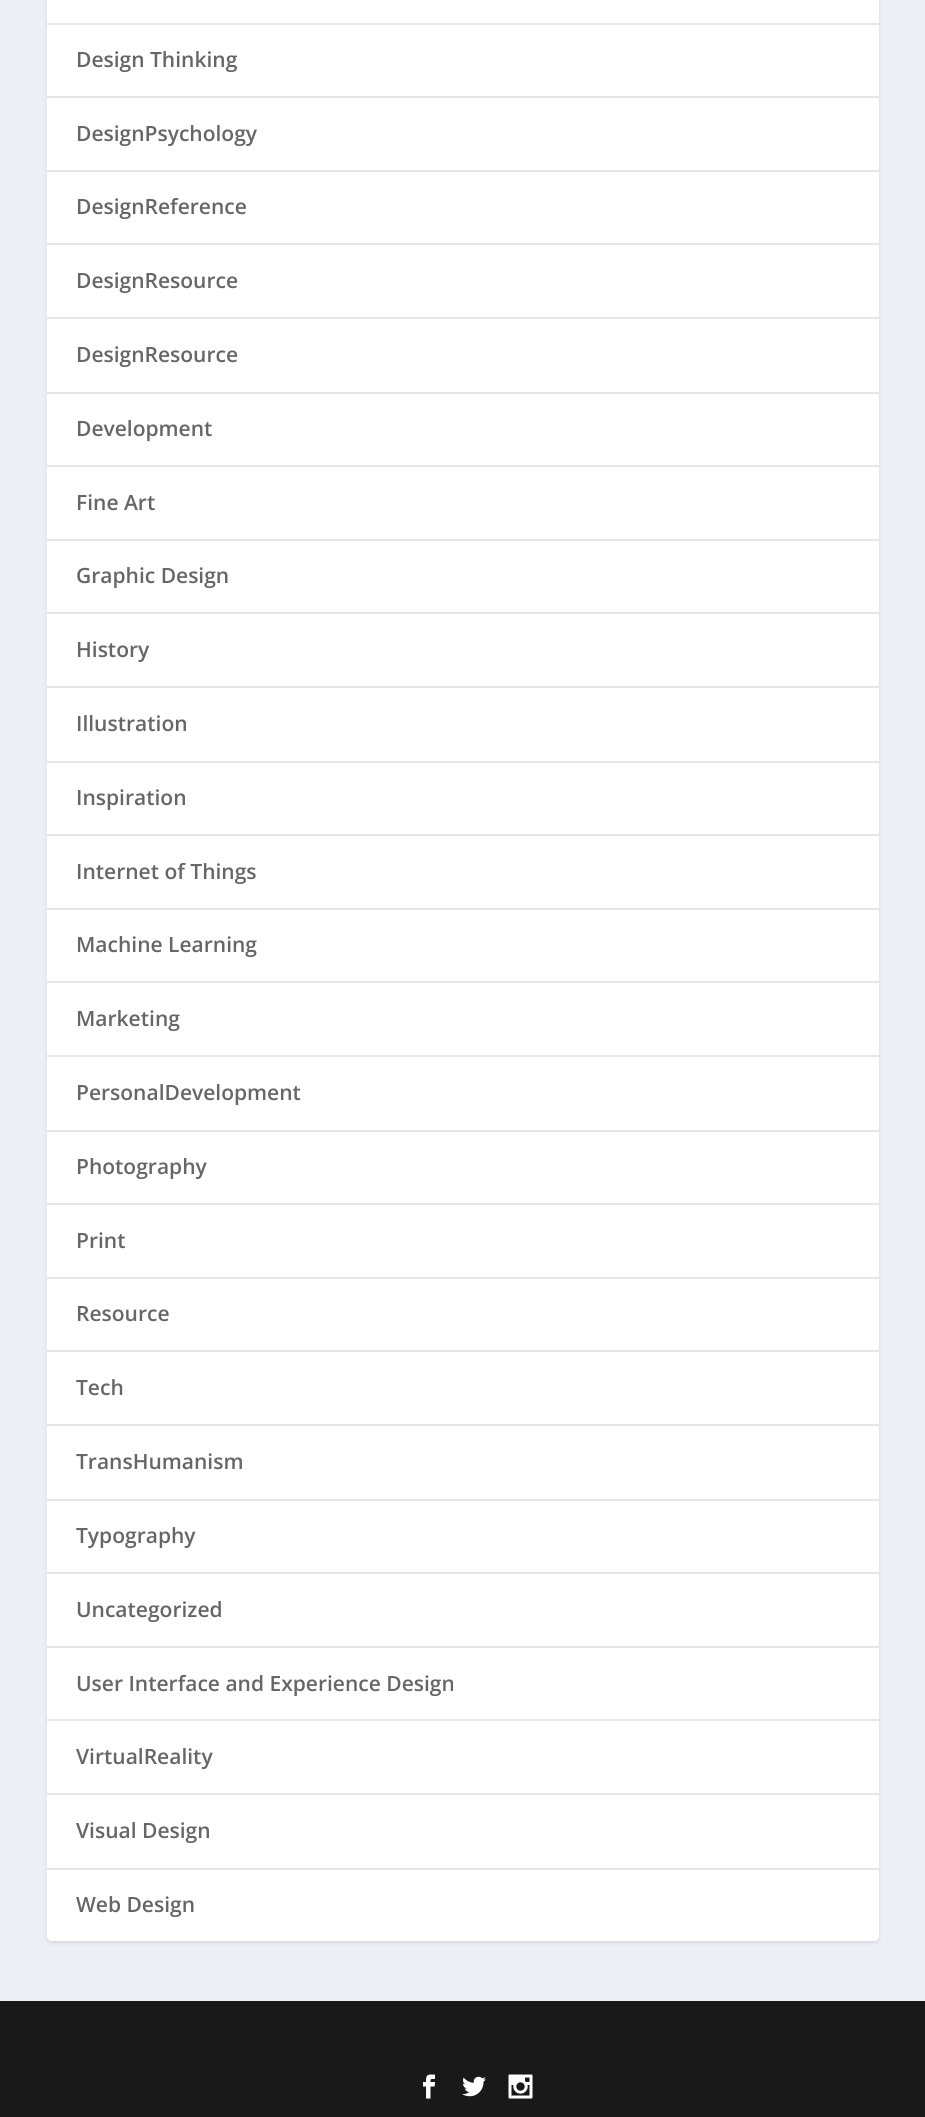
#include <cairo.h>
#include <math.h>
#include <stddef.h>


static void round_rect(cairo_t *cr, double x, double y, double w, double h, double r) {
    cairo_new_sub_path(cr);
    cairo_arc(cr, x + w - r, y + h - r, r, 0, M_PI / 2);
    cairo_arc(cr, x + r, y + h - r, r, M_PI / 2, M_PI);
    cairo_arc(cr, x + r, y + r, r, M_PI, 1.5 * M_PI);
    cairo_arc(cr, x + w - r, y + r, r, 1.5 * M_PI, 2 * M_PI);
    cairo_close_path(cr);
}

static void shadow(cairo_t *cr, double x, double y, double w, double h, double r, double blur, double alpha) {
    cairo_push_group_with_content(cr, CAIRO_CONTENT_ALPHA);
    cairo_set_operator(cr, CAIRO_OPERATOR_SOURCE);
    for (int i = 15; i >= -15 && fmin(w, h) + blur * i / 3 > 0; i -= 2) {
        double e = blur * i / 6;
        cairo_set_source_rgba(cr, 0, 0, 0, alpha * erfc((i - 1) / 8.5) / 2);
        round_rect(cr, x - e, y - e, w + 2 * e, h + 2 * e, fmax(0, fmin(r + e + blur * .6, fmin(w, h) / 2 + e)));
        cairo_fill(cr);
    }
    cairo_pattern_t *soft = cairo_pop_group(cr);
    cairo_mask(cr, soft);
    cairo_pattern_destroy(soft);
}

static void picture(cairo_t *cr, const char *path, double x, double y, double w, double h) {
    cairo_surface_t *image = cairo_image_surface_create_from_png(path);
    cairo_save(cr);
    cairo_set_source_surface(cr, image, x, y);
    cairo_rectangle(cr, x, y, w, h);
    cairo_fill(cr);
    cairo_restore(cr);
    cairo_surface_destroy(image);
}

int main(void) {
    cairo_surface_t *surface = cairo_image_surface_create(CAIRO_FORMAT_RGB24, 925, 2117);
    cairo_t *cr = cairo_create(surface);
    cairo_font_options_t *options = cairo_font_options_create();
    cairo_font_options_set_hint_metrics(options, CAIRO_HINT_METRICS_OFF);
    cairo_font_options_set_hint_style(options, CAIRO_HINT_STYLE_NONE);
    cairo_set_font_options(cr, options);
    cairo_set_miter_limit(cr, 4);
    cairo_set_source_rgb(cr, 0.925, 0.941, 0.961);
    cairo_paint(cr);
    cairo_set_source_rgb(cr, 0, 0, 0);
    shadow(cr, 47, -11, 832, 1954, 5, 2, 0.1);
    cairo_set_source_rgb(cr, 1, 1, 1);
    round_rect(cr, 47, -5, 832, 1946, 5);
    cairo_fill(cr);
    cairo_set_source_rgb(cr, 0.902, 0.902, 0.902);
    cairo_rectangle(cr, 47, 23, 832, 2);
    cairo_fill(cr);
    cairo_rectangle(cr, 47, 96, 832, 2);
    cairo_fill(cr);
    cairo_select_font_face(cr, "Open Sans SemiBold", CAIRO_FONT_SLANT_NORMAL, CAIRO_FONT_WEIGHT_NORMAL);
    cairo_set_font_size(cr, 21);
    cairo_set_source_rgb(cr, 0.4, 0.4, 0.4);
    cairo_move_to(cr, 76, 67);
    cairo_show_text(cr, "Design Thinking");
    cairo_set_source_rgb(cr, 0.902, 0.902, 0.902);
    cairo_rectangle(cr, 47, 170, 832, 2);
    cairo_fill(cr);
    cairo_set_source_rgb(cr, 0.4, 0.4, 0.4);
    cairo_move_to(cr, 76, 141);
    cairo_show_text(cr, "DesignPsychology");
    cairo_set_source_rgb(cr, 0.902, 0.902, 0.902);
    cairo_rectangle(cr, 47, 243, 832, 2);
    cairo_fill(cr);
    cairo_set_source_rgb(cr, 0.4, 0.4, 0.4);
    cairo_move_to(cr, 76, 214);
    cairo_show_text(cr, "DesignReference");
    cairo_set_source_rgb(cr, 0.902, 0.902, 0.902);
    cairo_rectangle(cr, 47, 317, 832, 2);
    cairo_fill(cr);
    cairo_set_source_rgb(cr, 0.4, 0.4, 0.4);
    cairo_move_to(cr, 76, 288);
    cairo_show_text(cr, "DesignResource");
    cairo_set_source_rgb(cr, 0.902, 0.902, 0.902);
    cairo_rectangle(cr, 47, 392, 832, 2);
    cairo_fill(cr);
    cairo_set_source_rgb(cr, 0.4, 0.4, 0.4);
    cairo_move_to(cr, 76, 362);
    cairo_show_text(cr, "DesignResource");
    cairo_set_source_rgb(cr, 0.902, 0.902, 0.902);
    cairo_rectangle(cr, 47, 465, 832, 2);
    cairo_fill(cr);
    cairo_set_source_rgb(cr, 0.4, 0.4, 0.4);
    cairo_move_to(cr, 76, 436);
    cairo_show_text(cr, "Development");
    cairo_set_source_rgb(cr, 0.902, 0.902, 0.902);
    cairo_rectangle(cr, 47, 539, 832, 2);
    cairo_fill(cr);
    cairo_set_source_rgb(cr, 0.4, 0.4, 0.4);
    cairo_move_to(cr, 76, 510);
    cairo_show_text(cr, "Fine Art");
    cairo_set_source_rgb(cr, 0.902, 0.902, 0.902);
    cairo_rectangle(cr, 47, 612, 832, 2);
    cairo_fill(cr);
    cairo_set_source_rgb(cr, 0.4, 0.4, 0.4);
    cairo_move_to(cr, 76, 583);
    cairo_show_text(cr, "Graphic Design");
    cairo_set_source_rgb(cr, 0.902, 0.902, 0.902);
    cairo_rectangle(cr, 47, 686, 832, 2);
    cairo_fill(cr);
    cairo_set_source_rgb(cr, 0.4, 0.4, 0.4);
    cairo_move_to(cr, 76, 657);
    cairo_show_text(cr, "History");
    cairo_set_source_rgb(cr, 0.902, 0.902, 0.902);
    cairo_rectangle(cr, 47, 761, 832, 2);
    cairo_fill(cr);
    cairo_set_source_rgb(cr, 0.4, 0.4, 0.4);
    cairo_move_to(cr, 76, 731);
    cairo_show_text(cr, "Illustration");
    cairo_set_source_rgb(cr, 0.902, 0.902, 0.902);
    cairo_rectangle(cr, 47, 834, 832, 2);
    cairo_fill(cr);
    cairo_set_source_rgb(cr, 0.4, 0.4, 0.4);
    cairo_move_to(cr, 76, 805);
    cairo_show_text(cr, "Inspiration");
    cairo_set_source_rgb(cr, 0.902, 0.902, 0.902);
    cairo_rectangle(cr, 47, 908, 832, 2);
    cairo_fill(cr);
    cairo_set_source_rgb(cr, 0.4, 0.4, 0.4);
    cairo_move_to(cr, 76, 879);
    cairo_show_text(cr, "Internet of Things");
    cairo_set_source_rgb(cr, 0.902, 0.902, 0.902);
    cairo_rectangle(cr, 47, 981, 832, 2);
    cairo_fill(cr);
    cairo_set_source_rgb(cr, 0.4, 0.4, 0.4);
    cairo_move_to(cr, 76, 952);
    cairo_show_text(cr, "Machine Learning");
    cairo_set_source_rgb(cr, 0.902, 0.902, 0.902);
    cairo_rectangle(cr, 47, 1055, 832, 2);
    cairo_fill(cr);
    cairo_set_source_rgb(cr, 0.4, 0.4, 0.4);
    cairo_move_to(cr, 76, 1026);
    cairo_show_text(cr, "Marketing");
    cairo_set_source_rgb(cr, 0.902, 0.902, 0.902);
    cairo_rectangle(cr, 47, 1130, 832, 2);
    cairo_fill(cr);
    cairo_set_source_rgb(cr, 0.4, 0.4, 0.4);
    cairo_move_to(cr, 76, 1100);
    cairo_show_text(cr, "PersonalDevelopment");
    cairo_set_source_rgb(cr, 0.902, 0.902, 0.902);
    cairo_rectangle(cr, 47, 1203, 832, 2);
    cairo_fill(cr);
    cairo_set_source_rgb(cr, 0.4, 0.4, 0.4);
    cairo_move_to(cr, 76, 1174);
    cairo_show_text(cr, "Photography");
    cairo_set_source_rgb(cr, 0.902, 0.902, 0.902);
    cairo_rectangle(cr, 47, 1277, 832, 2);
    cairo_fill(cr);
    cairo_set_source_rgb(cr, 0.4, 0.4, 0.4);
    cairo_move_to(cr, 76, 1248);
    cairo_show_text(cr, "Print");
    cairo_set_source_rgb(cr, 0.902, 0.902, 0.902);
    cairo_rectangle(cr, 47, 1350, 832, 2);
    cairo_fill(cr);
    cairo_set_source_rgb(cr, 0.4, 0.4, 0.4);
    cairo_move_to(cr, 76, 1321);
    cairo_show_text(cr, "Resource");
    cairo_set_source_rgb(cr, 0.902, 0.902, 0.902);
    cairo_rectangle(cr, 47, 1424, 832, 2);
    cairo_fill(cr);
    cairo_set_source_rgb(cr, 0.4, 0.4, 0.4);
    cairo_move_to(cr, 76, 1395);
    cairo_show_text(cr, "Tech");
    cairo_set_source_rgb(cr, 0.902, 0.902, 0.902);
    cairo_rectangle(cr, 47, 1499, 832, 2);
    cairo_fill(cr);
    cairo_set_source_rgb(cr, 0.4, 0.4, 0.4);
    cairo_move_to(cr, 76, 1469);
    cairo_show_text(cr, "TransHumanism");
    cairo_set_source_rgb(cr, 0.902, 0.902, 0.902);
    cairo_rectangle(cr, 47, 1572, 832, 2);
    cairo_fill(cr);
    cairo_set_source_rgb(cr, 0.4, 0.4, 0.4);
    cairo_move_to(cr, 76, 1543);
    cairo_show_text(cr, "Typography");
    cairo_set_source_rgb(cr, 0.902, 0.902, 0.902);
    cairo_rectangle(cr, 47, 1646, 832, 2);
    cairo_fill(cr);
    cairo_set_source_rgb(cr, 0.4, 0.4, 0.4);
    cairo_move_to(cr, 76, 1617);
    cairo_show_text(cr, "Uncategorized");
    cairo_set_source_rgb(cr, 0.902, 0.902, 0.902);
    cairo_rectangle(cr, 47, 1719, 832, 2);
    cairo_fill(cr);
    cairo_set_source_rgb(cr, 0.4, 0.4, 0.4);
    cairo_move_to(cr, 76, 1691);
    cairo_show_text(cr, "User Interface and Experience Design");
    cairo_set_source_rgb(cr, 0.902, 0.902, 0.902);
    cairo_rectangle(cr, 47, 1793, 832, 2);
    cairo_fill(cr);
    cairo_set_source_rgb(cr, 0.4, 0.4, 0.4);
    cairo_move_to(cr, 76, 1764);
    cairo_show_text(cr, "VirtualReality");
    cairo_set_source_rgb(cr, 0.902, 0.902, 0.902);
    cairo_rectangle(cr, 47, 1868, 832, 2);
    cairo_fill(cr);
    cairo_set_source_rgb(cr, 0.4, 0.4, 0.4);
    cairo_move_to(cr, 76, 1838);
    cairo_show_text(cr, "Visual Design");
    cairo_move_to(cr, 76, 1912);
    cairo_show_text(cr, "Web Design");
    cairo_set_source_rgb(cr, 0.098, 0.098, 0.098);
    cairo_rectangle(cr, 0, 2001, 925, 116);
    cairo_fill(cr);
    picture(cr, "img1.png", 423, 2074, 13, 25);
    picture(cr, "img2.png", 462, 2076, 24, 21);
    picture(cr, "img3.png", 508, 2074, 25, 25);
    cairo_surface_write_to_png(surface, "page.png");
    cairo_font_options_destroy(options);
    cairo_destroy(cr);
    cairo_surface_destroy(surface);
    return 0;
}
